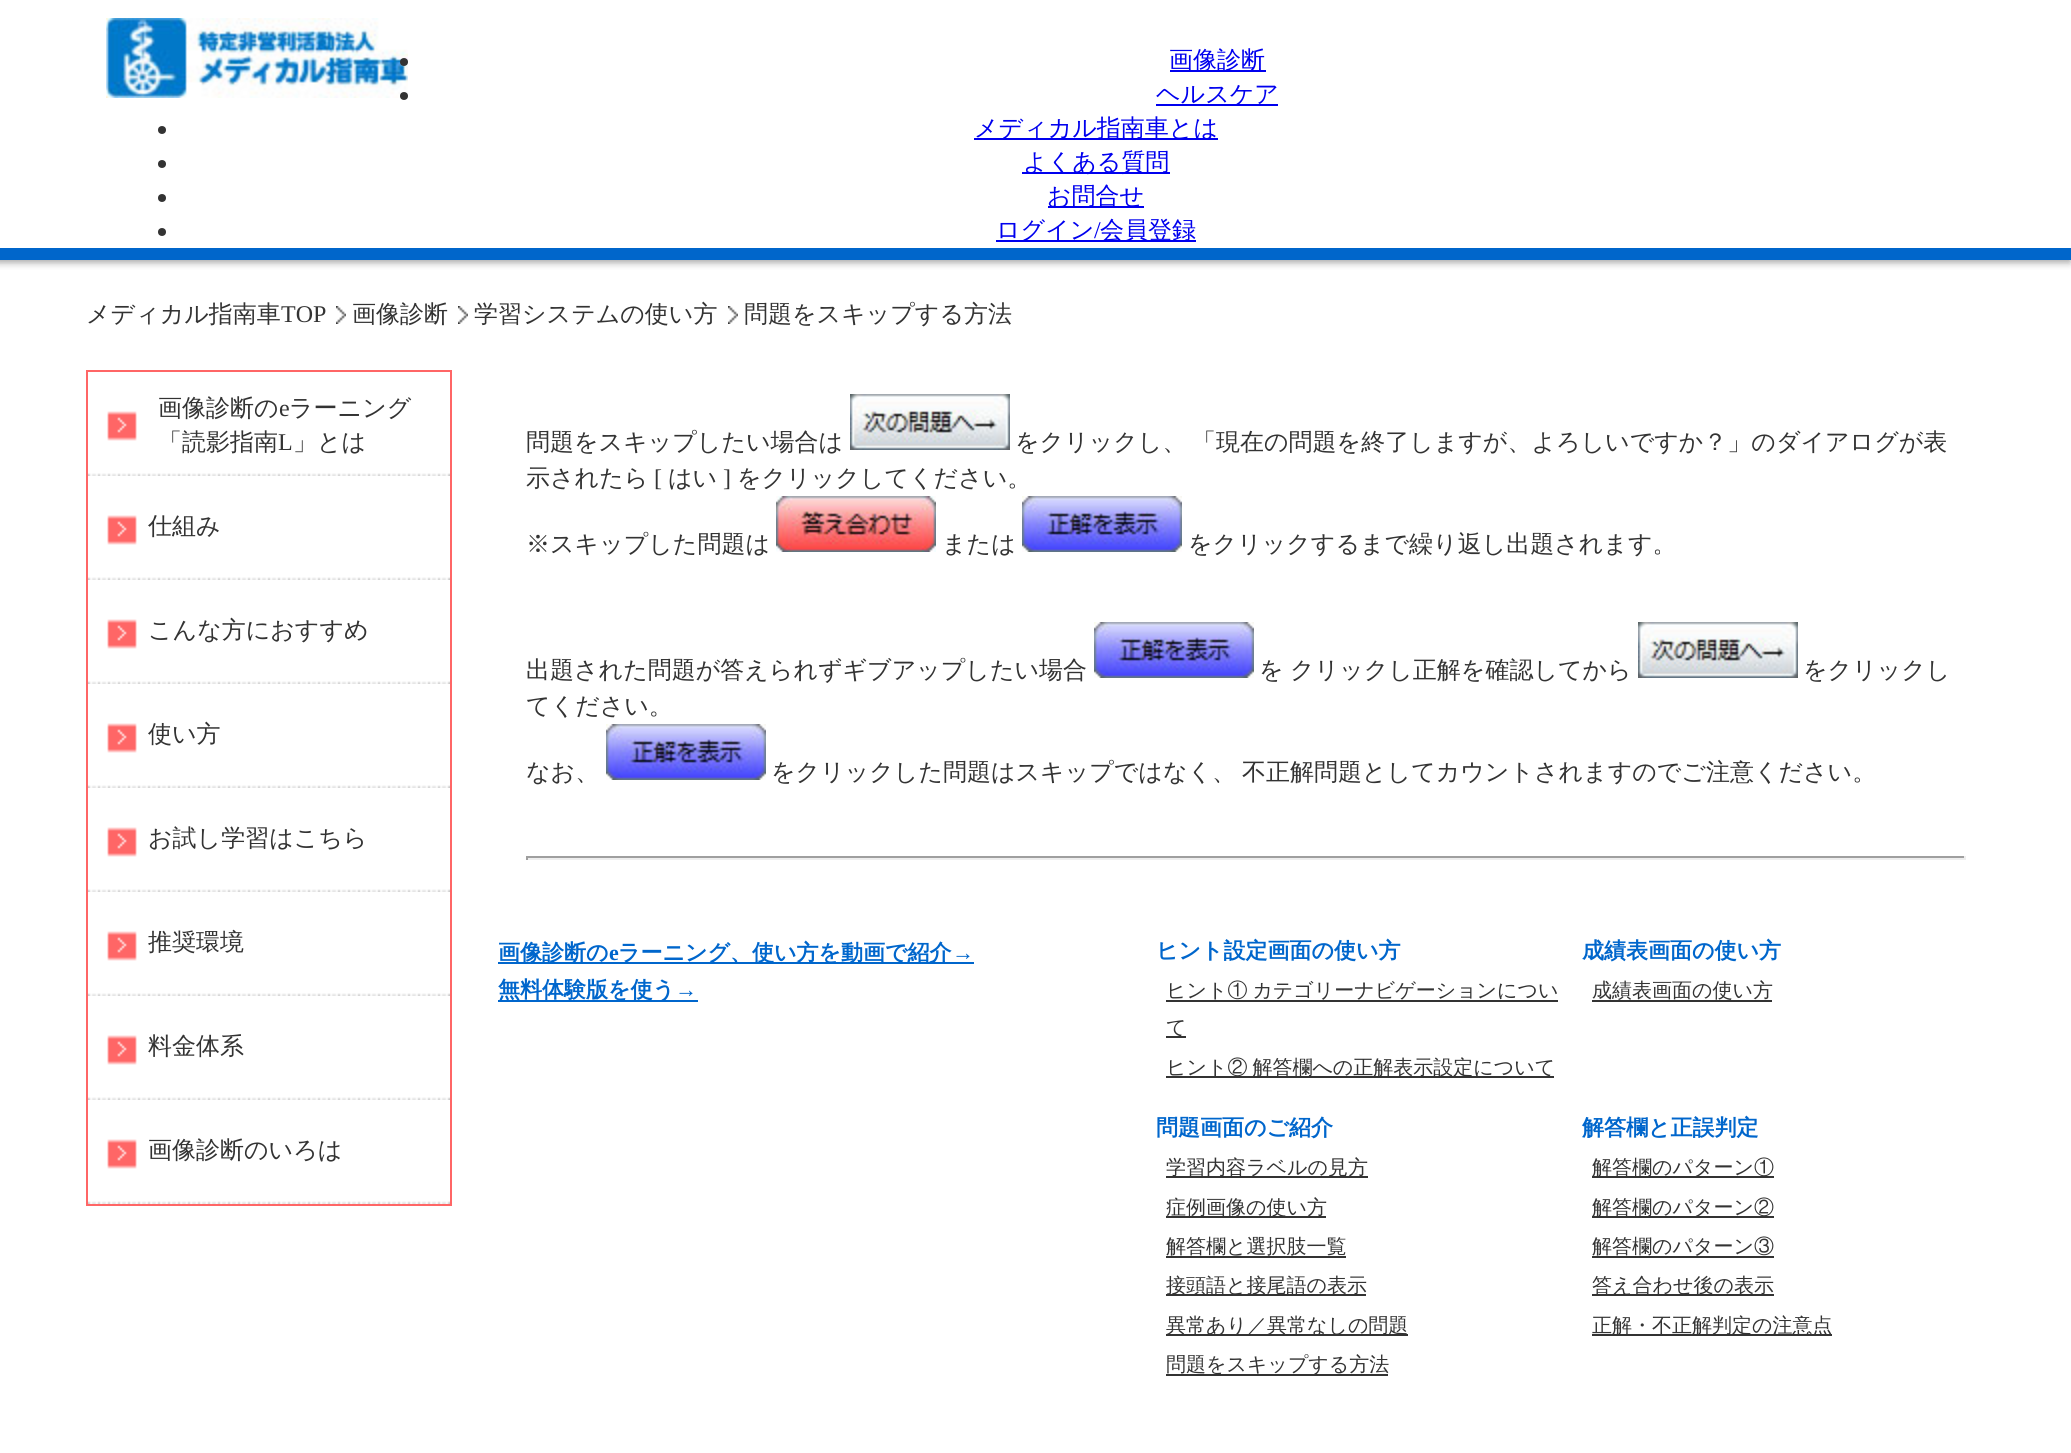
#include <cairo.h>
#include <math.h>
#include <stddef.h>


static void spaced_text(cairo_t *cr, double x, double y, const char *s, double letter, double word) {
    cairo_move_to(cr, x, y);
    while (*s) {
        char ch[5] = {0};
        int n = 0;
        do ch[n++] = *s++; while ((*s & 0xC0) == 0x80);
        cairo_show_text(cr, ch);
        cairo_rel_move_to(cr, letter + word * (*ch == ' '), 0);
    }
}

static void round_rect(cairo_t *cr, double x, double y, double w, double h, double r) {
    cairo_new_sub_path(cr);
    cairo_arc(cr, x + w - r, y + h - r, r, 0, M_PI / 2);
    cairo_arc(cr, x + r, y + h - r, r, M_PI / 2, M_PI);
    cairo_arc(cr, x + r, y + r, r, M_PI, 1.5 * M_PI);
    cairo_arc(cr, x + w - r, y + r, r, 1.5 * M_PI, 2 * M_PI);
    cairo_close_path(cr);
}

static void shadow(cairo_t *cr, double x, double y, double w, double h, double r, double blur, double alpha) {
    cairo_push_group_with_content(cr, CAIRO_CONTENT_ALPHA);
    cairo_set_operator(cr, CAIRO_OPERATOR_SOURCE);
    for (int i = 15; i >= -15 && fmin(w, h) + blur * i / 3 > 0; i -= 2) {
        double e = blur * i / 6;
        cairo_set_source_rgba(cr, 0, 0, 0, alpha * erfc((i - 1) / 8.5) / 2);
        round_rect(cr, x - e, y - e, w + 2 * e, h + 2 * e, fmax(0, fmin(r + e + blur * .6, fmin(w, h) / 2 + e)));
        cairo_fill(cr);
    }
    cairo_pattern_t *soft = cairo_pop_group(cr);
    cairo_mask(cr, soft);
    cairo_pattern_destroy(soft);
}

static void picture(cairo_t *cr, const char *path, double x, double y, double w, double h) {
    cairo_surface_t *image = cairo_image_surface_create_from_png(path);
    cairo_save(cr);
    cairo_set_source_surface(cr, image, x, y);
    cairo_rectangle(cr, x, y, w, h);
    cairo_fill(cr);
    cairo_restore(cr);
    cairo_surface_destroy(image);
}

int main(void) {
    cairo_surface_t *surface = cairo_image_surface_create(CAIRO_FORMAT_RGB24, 2071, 1453);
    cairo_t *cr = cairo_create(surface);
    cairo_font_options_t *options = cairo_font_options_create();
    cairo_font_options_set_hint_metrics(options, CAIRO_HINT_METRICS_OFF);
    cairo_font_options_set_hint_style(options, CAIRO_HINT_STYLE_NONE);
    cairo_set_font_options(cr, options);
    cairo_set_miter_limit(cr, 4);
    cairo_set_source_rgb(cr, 1, 1, 1);
    cairo_paint(cr);
    cairo_save(cr);
    cairo_rectangle(cr, 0, 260, 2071, 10);
    cairo_clip(cr);
    cairo_set_source_rgb(cr, 0.6, 0.6, 0.6);
    shadow(cr, -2, 2, 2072, 260, 0, 4, 1);
    cairo_restore(cr);
    cairo_set_source_rgb(cr, 0, 0.4, 0.796);
    cairo_rectangle(cr, 0, 248, 2071, 12);
    cairo_fill(cr);
    picture(cr, "img1.png", 106, 18, 302, 80);
    cairo_set_source_rgb(cr, 0.2, 0.2, 0.2);
    cairo_arc(cr, 404, 62, 4, 0, 2 * M_PI);
    cairo_fill(cr);
    cairo_set_source_rgb(cr, 0, 0, 0.933);
    cairo_rectangle(cr, 1170, 70, 96, 2);
    cairo_fill(cr);
    cairo_select_font_face(cr, "WenQuanYi Zen Hei Medium", CAIRO_FONT_SLANT_NORMAL, CAIRO_FONT_WEIGHT_NORMAL);
    cairo_set_font_size(cr, 24);
    cairo_move_to(cr, 1169, 68);
    cairo_show_text(cr, "画像診断");
    cairo_set_source_rgb(cr, 0.2, 0.2, 0.2);
    cairo_new_path(cr);
    cairo_arc(cr, 404, 96, 4, 0, 2 * M_PI);
    cairo_fill(cr);
    cairo_set_source_rgb(cr, 0, 0, 0.933);
    cairo_rectangle(cr, 1156, 104, 122, 2);
    cairo_fill(cr);
    cairo_move_to(cr, 1156, 102);
    cairo_show_text(cr, "ヘルスケア");
    cairo_set_source_rgb(cr, 0.2, 0.2, 0.2);
    cairo_new_path(cr);
    cairo_arc(cr, 162, 130, 4, 0, 2 * M_PI);
    cairo_fill(cr);
    cairo_set_source_rgb(cr, 0, 0, 0.933);
    cairo_rectangle(cr, 974, 138, 244, 2);
    cairo_fill(cr);
    cairo_move_to(cr, 974, 136);
    cairo_show_text(cr, "メディカル指南車とは");
    cairo_set_source_rgb(cr, 0.2, 0.2, 0.2);
    cairo_new_path(cr);
    cairo_arc(cr, 162, 164, 4, 0, 2 * M_PI);
    cairo_fill(cr);
    cairo_set_source_rgb(cr, 0, 0, 0.933);
    cairo_rectangle(cr, 1022, 172, 148, 2);
    cairo_fill(cr);
    cairo_move_to(cr, 1023, 170);
    cairo_show_text(cr, "よくある質問");
    cairo_set_source_rgb(cr, 0.2, 0.2, 0.2);
    cairo_new_path(cr);
    cairo_arc(cr, 162, 198, 4, 0, 2 * M_PI);
    cairo_fill(cr);
    cairo_set_source_rgb(cr, 0, 0, 0.933);
    cairo_rectangle(cr, 1048, 206, 96, 2);
    cairo_fill(cr);
    cairo_move_to(cr, 1047, 204);
    cairo_show_text(cr, "お問合せ");
    cairo_set_source_rgb(cr, 0.2, 0.2, 0.2);
    cairo_new_path(cr);
    cairo_arc(cr, 162, 232, 4, 0, 2 * M_PI);
    cairo_fill(cr);
    cairo_set_source_rgb(cr, 0, 0, 0.933);
    cairo_rectangle(cr, 996, 240, 200, 2);
    cairo_fill(cr);
    cairo_move_to(cr, 996, 238);
    cairo_show_text(cr, "ログイン");
    cairo_select_font_face(cr, "Liberation Serif", CAIRO_FONT_SLANT_NORMAL, CAIRO_FONT_WEIGHT_NORMAL);
    cairo_move_to(cr, 1094, 238);
    cairo_show_text(cr, "/");
    cairo_select_font_face(cr, "WenQuanYi Zen Hei Medium", CAIRO_FONT_SLANT_NORMAL, CAIRO_FONT_WEIGHT_NORMAL);
    cairo_move_to(cr, 1100, 238);
    cairo_show_text(cr, "会員登録");
    cairo_set_source_rgb(cr, 0.2, 0.2, 0.2);
    cairo_move_to(cr, 86, 322);
    cairo_show_text(cr, "メディカル指南車");
    cairo_select_font_face(cr, "Liberation Serif", CAIRO_FONT_SLANT_NORMAL, CAIRO_FONT_WEIGHT_NORMAL);
    cairo_move_to(cr, 281, 322);
    cairo_show_text(cr, "TOP");
    picture(cr, "img2.png", 336, 306, 10, 18);
    cairo_select_font_face(cr, "WenQuanYi Zen Hei Medium", CAIRO_FONT_SLANT_NORMAL, CAIRO_FONT_WEIGHT_NORMAL);
    cairo_move_to(cr, 352, 322);
    cairo_show_text(cr, "画像診断");
    picture(cr, "img2.png", 458, 306, 10, 18);
    cairo_move_to(cr, 474, 322);
    cairo_show_text(cr, "学習システムの使い方");
    picture(cr, "img2.png", 728, 306, 10, 18);
    cairo_move_to(cr, 744, 322);
    cairo_show_text(cr, "問題をスキップする方法");
    cairo_rectangle(cr, 87, 371, 364, 834);
    cairo_set_source_rgb(cr, 1, 0.4, 0.4);
    cairo_stroke(cr);
    picture(cr, "img3.png", 88, 411, 362, 65);
    cairo_set_source_rgb(cr, 0.2, 0.2, 0.2);
    cairo_move_to(cr, 158, 416);
    cairo_show_text(cr, "画像診断の");
    cairo_select_font_face(cr, "Liberation Serif", CAIRO_FONT_SLANT_NORMAL, CAIRO_FONT_WEIGHT_NORMAL);
    cairo_move_to(cr, 279, 416);
    cairo_show_text(cr, "e");
    cairo_select_font_face(cr, "WenQuanYi Zen Hei Medium", CAIRO_FONT_SLANT_NORMAL, CAIRO_FONT_WEIGHT_NORMAL);
    cairo_move_to(cr, 289, 416);
    cairo_show_text(cr, "ラーニング");
    cairo_move_to(cr, 158, 450);
    cairo_show_text(cr, "「読影指南");
    cairo_select_font_face(cr, "Liberation Serif", CAIRO_FONT_SLANT_NORMAL, CAIRO_FONT_WEIGHT_NORMAL);
    cairo_move_to(cr, 278, 450);
    cairo_show_text(cr, "L");
    cairo_select_font_face(cr, "WenQuanYi Zen Hei Medium", CAIRO_FONT_SLANT_NORMAL, CAIRO_FONT_WEIGHT_NORMAL);
    cairo_move_to(cr, 293, 450);
    cairo_show_text(cr, "」とは");
    picture(cr, "img3.png", 88, 515, 362, 65);
    cairo_move_to(cr, 148, 534);
    cairo_show_text(cr, "仕組み");
    picture(cr, "img3.png", 88, 619, 362, 65);
    cairo_move_to(cr, 148, 638);
    cairo_show_text(cr, "こんな方におすすめ");
    picture(cr, "img3.png", 88, 723, 362, 65);
    cairo_move_to(cr, 148, 742);
    cairo_show_text(cr, "使い方");
    picture(cr, "img3.png", 88, 827, 362, 65);
    cairo_move_to(cr, 148, 846);
    cairo_show_text(cr, "お試し学習はこちら");
    picture(cr, "img3.png", 88, 931, 362, 65);
    cairo_move_to(cr, 148, 950);
    cairo_show_text(cr, "推奨環境");
    picture(cr, "img3.png", 88, 1035, 362, 65);
    cairo_move_to(cr, 148, 1054);
    cairo_show_text(cr, "料金体系");
    picture(cr, "img3.png", 88, 1139, 362, 65);
    cairo_move_to(cr, 148, 1158);
    cairo_show_text(cr, "画像診断のいろは");
    cairo_move_to(cr, 526, 450);
    cairo_show_text(cr, "問題をスキップしたい場合は");
    picture(cr, "img4.png", 850, 394, 160, 56);
    cairo_move_to(cr, 1015, 450);
    cairo_show_text(cr, "をクリックし、");
    cairo_move_to(cr, 1192, 450);
    cairo_show_text(cr, "「現在の問題を終了しますが、よろしいですか？」のダイアログが表");
    cairo_move_to(cr, 526, 486);
    cairo_show_text(cr, "示されたら");
    cairo_select_font_face(cr, "Liberation Serif", CAIRO_FONT_SLANT_NORMAL, CAIRO_FONT_WEIGHT_NORMAL);
    cairo_move_to(cr, 654, 486);
    cairo_show_text(cr, "[");
    cairo_select_font_face(cr, "WenQuanYi Zen Hei Medium", CAIRO_FONT_SLANT_NORMAL, CAIRO_FONT_WEIGHT_NORMAL);
    cairo_move_to(cr, 668, 486);
    cairo_show_text(cr, "はい");
    cairo_select_font_face(cr, "Liberation Serif", CAIRO_FONT_SLANT_NORMAL, CAIRO_FONT_WEIGHT_NORMAL);
    cairo_move_to(cr, 723, 486);
    cairo_show_text(cr, "]");
    cairo_select_font_face(cr, "WenQuanYi Zen Hei Medium", CAIRO_FONT_SLANT_NORMAL, CAIRO_FONT_WEIGHT_NORMAL);
    cairo_move_to(cr, 737, 486);
    cairo_show_text(cr, "をクリックしてください。");
    cairo_move_to(cr, 526, 552);
    cairo_show_text(cr, "※スキップした問題は");
    picture(cr, "img5.png", 776, 496, 160, 56);
    cairo_move_to(cr, 942, 552);
    cairo_show_text(cr, "または");
    picture(cr, "img6.png", 1022, 496, 160, 56);
    cairo_move_to(cr, 1188, 552);
    cairo_show_text(cr, "をクリックするまで繰り返し出題されます。");
    cairo_move_to(cr, 526, 678);
    cairo_show_text(cr, "出題された問題が答えられずギブアップしたい場合");
    picture(cr, "img6.png", 1094, 622, 160, 56);
    cairo_move_to(cr, 1259, 678);
    cairo_show_text(cr, "を");
    cairo_move_to(cr, 1290, 678);
    cairo_show_text(cr, "クリックし正解を確認してから");
    picture(cr, "img4.png", 1638, 622, 160, 56);
    cairo_move_to(cr, 1803, 678);
    cairo_show_text(cr, "をクリックし");
    cairo_move_to(cr, 526, 714);
    cairo_show_text(cr, "てください。");
    cairo_move_to(cr, 526, 780);
    cairo_show_text(cr, "なお、");
    picture(cr, "img6.png", 606, 724, 160, 56);
    cairo_move_to(cr, 771, 780);
    cairo_show_text(cr, "をクリックした問題はスキップではなく、");
    cairo_move_to(cr, 1242, 780);
    cairo_show_text(cr, "不正解問題としてカウントされますのでご注意ください。");
    cairo_set_source_rgb(cr, 0.624, 0.624, 0.624);
    cairo_rectangle(cr, 526, 856, 1440, 2);
    cairo_fill(cr);
    cairo_set_source_rgb(cr, 0.933, 0.933, 0.933);
    cairo_rectangle(cr, 1964, 856, 2, 4);
    cairo_fill(cr);
    cairo_rectangle(cr, 526, 858, 1440, 2);
    cairo_fill(cr);
    cairo_set_source_rgb(cr, 0.624, 0.624, 0.624);
    cairo_rectangle(cr, 526, 856, 2, 4);
    cairo_fill(cr);
    cairo_set_source_rgb(cr, 0, 0.4, 0.8);
    cairo_rectangle(cr, 498, 962, 476, 2);
    cairo_fill(cr);
    cairo_select_font_face(cr, "WenQuanYi Zen Hei", CAIRO_FONT_SLANT_NORMAL, CAIRO_FONT_WEIGHT_BOLD);
    cairo_set_font_size(cr, 22);
    cairo_move_to(cr, 498, 960);
    cairo_show_text(cr, "画像診断の");
    cairo_select_font_face(cr, "Liberation Serif", CAIRO_FONT_SLANT_NORMAL, CAIRO_FONT_WEIGHT_BOLD);
    cairo_move_to(cr, 609, 960);
    cairo_show_text(cr, "e");
    cairo_select_font_face(cr, "WenQuanYi Zen Hei", CAIRO_FONT_SLANT_NORMAL, CAIRO_FONT_WEIGHT_BOLD);
    cairo_move_to(cr, 618, 960);
    cairo_show_text(cr, "ラーニング、使い方を動画で紹介");
    cairo_select_font_face(cr, "Liberation Serif", CAIRO_FONT_SLANT_NORMAL, CAIRO_FONT_WEIGHT_BOLD);
    cairo_move_to(cr, 952, 960);
    cairo_show_text(cr, "→");
    cairo_rectangle(cr, 498, 1000, 200, 2);
    cairo_fill(cr);
    cairo_select_font_face(cr, "WenQuanYi Zen Hei", CAIRO_FONT_SLANT_NORMAL, CAIRO_FONT_WEIGHT_BOLD);
    cairo_move_to(cr, 498, 997);
    cairo_show_text(cr, "無料体験版を使う");
    cairo_select_font_face(cr, "Liberation Serif", CAIRO_FONT_SLANT_NORMAL, CAIRO_FONT_WEIGHT_BOLD);
    cairo_move_to(cr, 675, 997);
    cairo_show_text(cr, "→");
    cairo_select_font_face(cr, "WenQuanYi Zen Hei", CAIRO_FONT_SLANT_NORMAL, CAIRO_FONT_WEIGHT_BOLD);
    cairo_move_to(cr, 1156, 958);
    cairo_show_text(cr, "ヒント設定画面の使い方");
    cairo_move_to(cr, 1582, 958);
    cairo_show_text(cr, "成績表画面の使い方");
    cairo_select_font_face(cr, "WenQuanYi Zen Hei Medium", CAIRO_FONT_SLANT_NORMAL, CAIRO_FONT_WEIGHT_NORMAL);
    cairo_set_font_size(cr, 20);
    cairo_set_source_rgb(cr, 0.2, 0.2, 0.2);
    spaced_text(cr, 1166, 997, "ヒント① カテゴリーナビゲーションについ", 0, -1);
    cairo_rectangle(cr, 1166, 1000, 392, 2);
    cairo_fill(cr);
    cairo_rectangle(cr, 1166, 1036, 20, 2);
    cairo_fill(cr);
    cairo_move_to(cr, 1166, 1034);
    cairo_show_text(cr, "て");
    cairo_rectangle(cr, 1166, 1076, 388, 2);
    cairo_fill(cr);
    spaced_text(cr, 1166, 1074, "ヒント② 解答欄への正解表示設定について", 0, -1);
    cairo_rectangle(cr, 1592, 1000, 180, 2);
    cairo_fill(cr);
    cairo_move_to(cr, 1592, 997);
    cairo_show_text(cr, "成績表画面の使い方");
    cairo_select_font_face(cr, "WenQuanYi Zen Hei", CAIRO_FONT_SLANT_NORMAL, CAIRO_FONT_WEIGHT_BOLD);
    cairo_set_font_size(cr, 22);
    cairo_set_source_rgb(cr, 0, 0.4, 0.8);
    cairo_move_to(cr, 1156, 1135);
    cairo_show_text(cr, "問題画面のご紹介");
    cairo_move_to(cr, 1582, 1135);
    cairo_show_text(cr, "解答欄と正誤判定");
    cairo_set_source_rgb(cr, 0.2, 0.2, 0.2);
    cairo_rectangle(cr, 1166, 1176, 202, 2);
    cairo_fill(cr);
    cairo_select_font_face(cr, "WenQuanYi Zen Hei Medium", CAIRO_FONT_SLANT_NORMAL, CAIRO_FONT_WEIGHT_NORMAL);
    cairo_set_font_size(cr, 20);
    cairo_move_to(cr, 1166, 1174);
    cairo_show_text(cr, "学習内容ラベルの見方");
    cairo_rectangle(cr, 1166, 1216, 160, 2);
    cairo_fill(cr);
    cairo_move_to(cr, 1166, 1214);
    cairo_show_text(cr, "症例画像の使い方");
    cairo_move_to(cr, 1166, 1253);
    cairo_show_text(cr, "解答欄と選択肢一覧");
    cairo_rectangle(cr, 1166, 1256, 180, 2);
    cairo_fill(cr);
    cairo_rectangle(cr, 1166, 1294, 200, 2);
    cairo_fill(cr);
    cairo_move_to(cr, 1166, 1292);
    cairo_show_text(cr, "接頭語と接尾語の表示");
    cairo_rectangle(cr, 1166, 1334, 242, 2);
    cairo_fill(cr);
    cairo_move_to(cr, 1166, 1332);
    cairo_show_text(cr, "異常あり／異常なしの問題");
    cairo_rectangle(cr, 1166, 1374, 222, 2);
    cairo_fill(cr);
    cairo_move_to(cr, 1166, 1371);
    cairo_show_text(cr, "問題をスキップする方法");
    cairo_rectangle(cr, 1592, 1176, 182, 2);
    cairo_fill(cr);
    cairo_move_to(cr, 1592, 1174);
    cairo_show_text(cr, "解答欄のパターン①");
    cairo_rectangle(cr, 1592, 1216, 182, 2);
    cairo_fill(cr);
    cairo_move_to(cr, 1592, 1214);
    cairo_show_text(cr, "解答欄のパターン②");
    cairo_move_to(cr, 1592, 1253);
    cairo_show_text(cr, "解答欄のパターン③");
    cairo_rectangle(cr, 1592, 1256, 182, 2);
    cairo_fill(cr);
    cairo_rectangle(cr, 1592, 1294, 182, 2);
    cairo_fill(cr);
    cairo_move_to(cr, 1592, 1292);
    cairo_show_text(cr, "答え合わせ後の表示");
    cairo_rectangle(cr, 1592, 1334, 240, 2);
    cairo_fill(cr);
    cairo_move_to(cr, 1592, 1332);
    cairo_show_text(cr, "正解・不正解判定の注意点");
    cairo_surface_write_to_png(surface, "page.png");
    cairo_font_options_destroy(options);
    cairo_destroy(cr);
    cairo_surface_destroy(surface);
    return 0;
}
